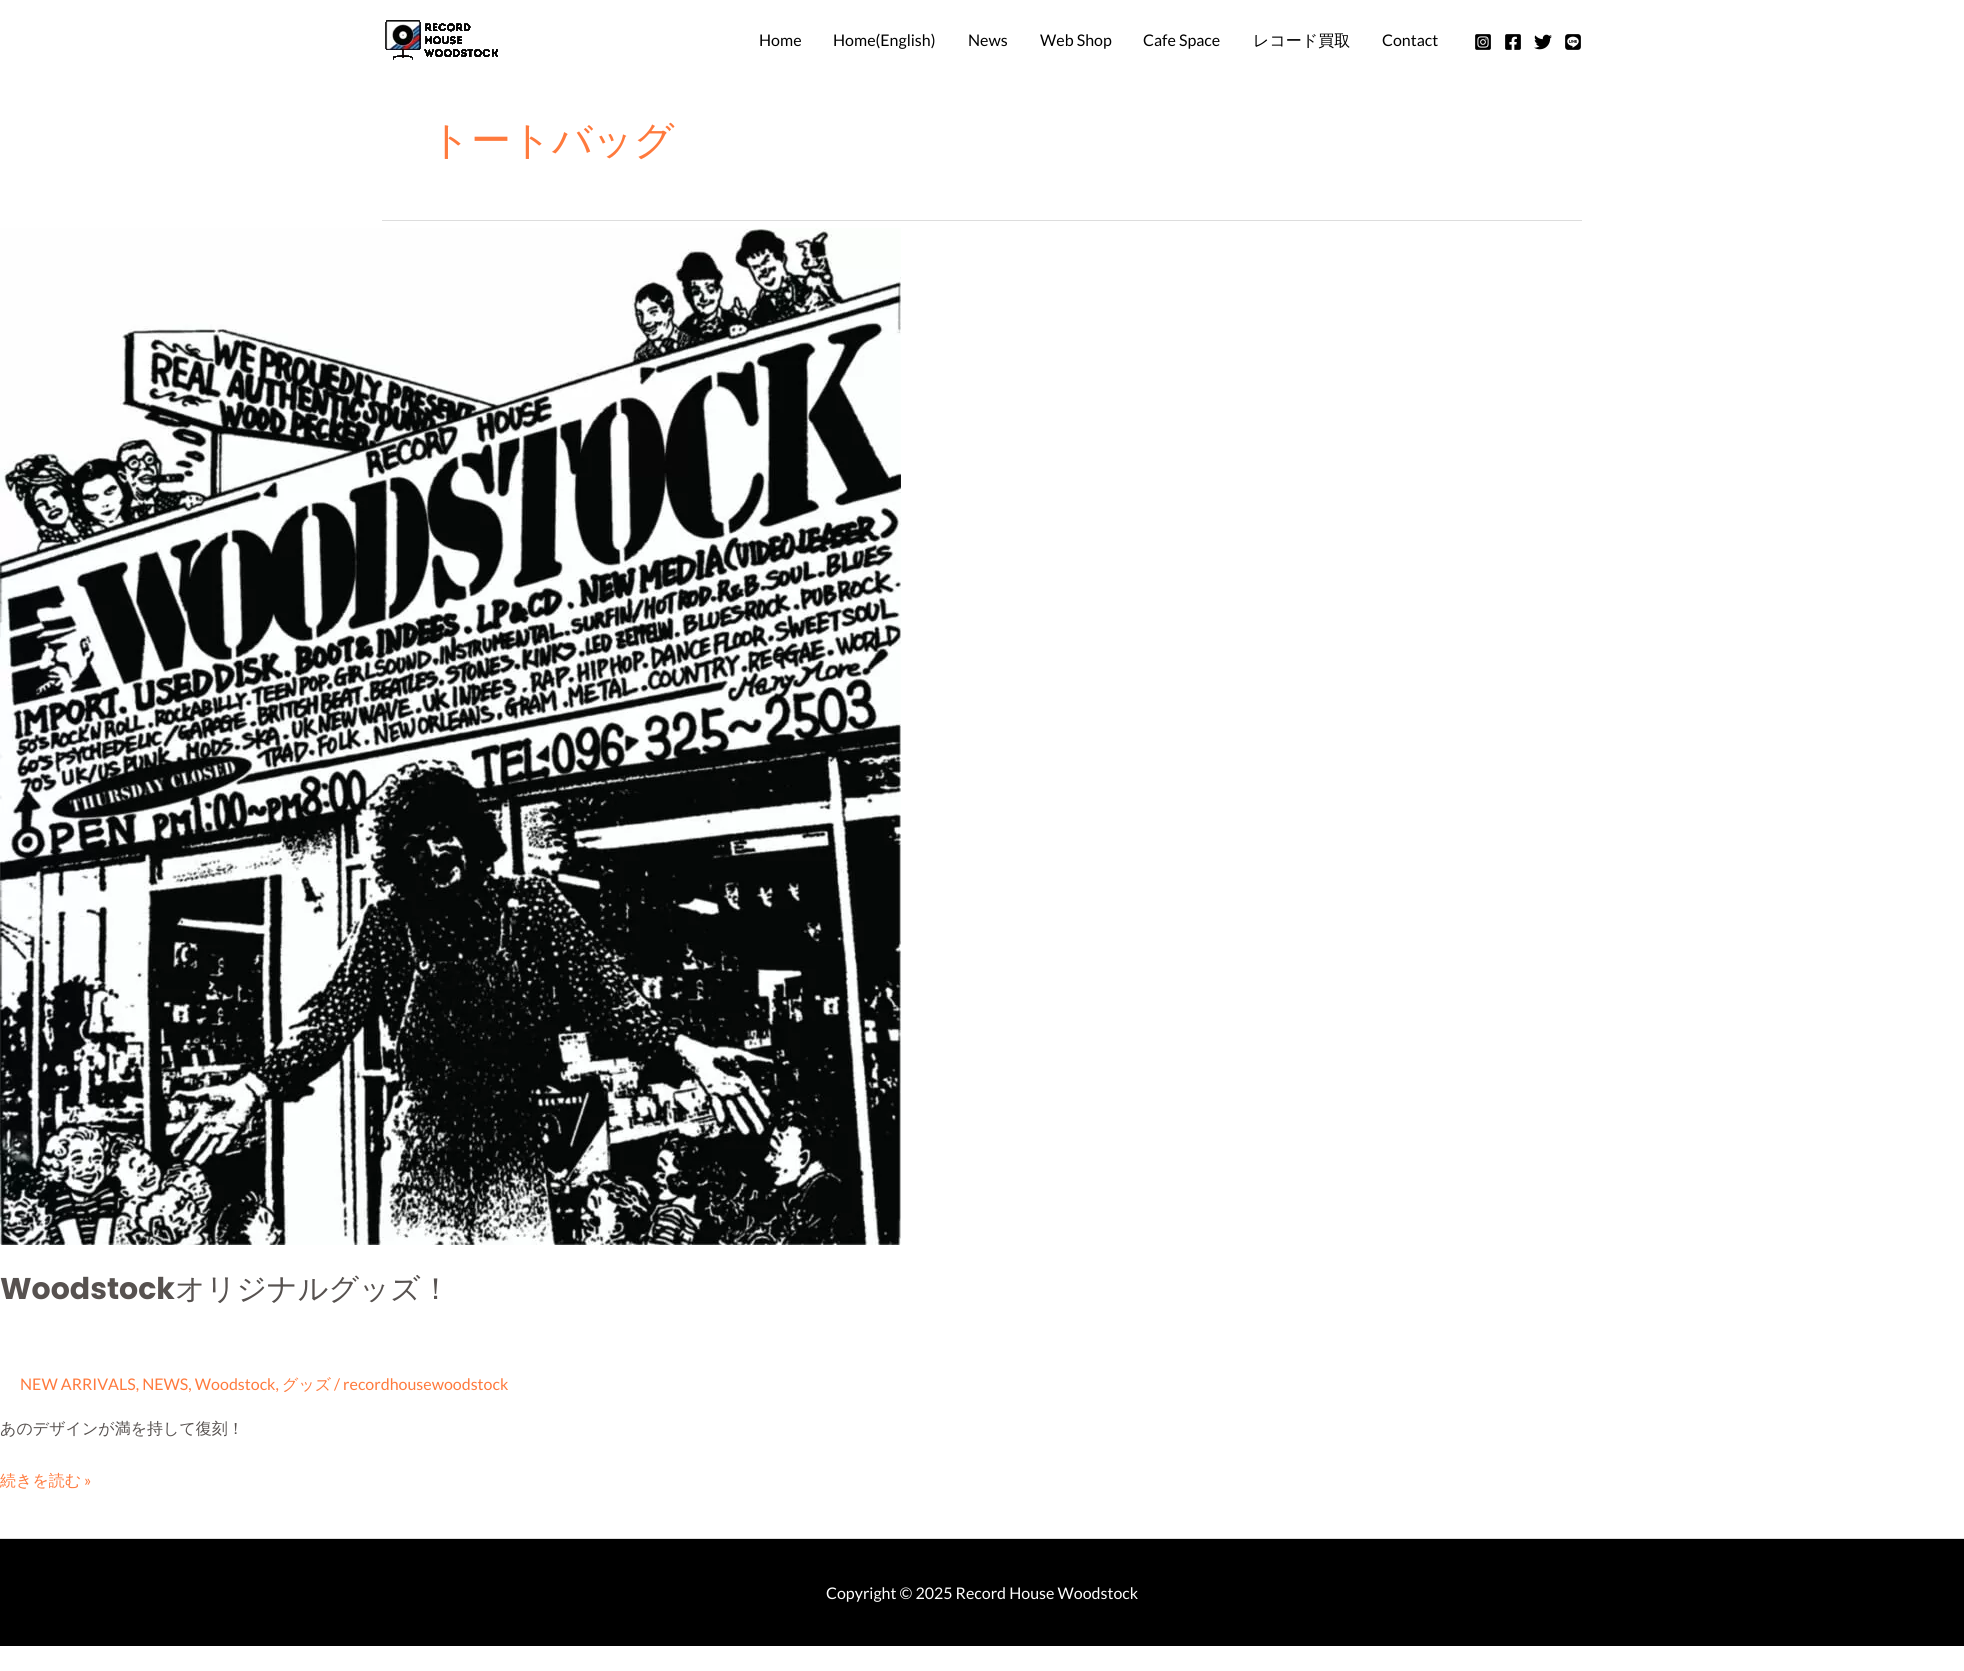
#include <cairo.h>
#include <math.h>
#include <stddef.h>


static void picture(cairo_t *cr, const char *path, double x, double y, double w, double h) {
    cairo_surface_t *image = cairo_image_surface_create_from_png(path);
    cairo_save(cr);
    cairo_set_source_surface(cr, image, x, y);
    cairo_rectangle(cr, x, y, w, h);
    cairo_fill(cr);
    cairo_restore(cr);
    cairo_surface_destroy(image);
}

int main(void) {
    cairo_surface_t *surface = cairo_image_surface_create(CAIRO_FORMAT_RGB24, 1964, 1671);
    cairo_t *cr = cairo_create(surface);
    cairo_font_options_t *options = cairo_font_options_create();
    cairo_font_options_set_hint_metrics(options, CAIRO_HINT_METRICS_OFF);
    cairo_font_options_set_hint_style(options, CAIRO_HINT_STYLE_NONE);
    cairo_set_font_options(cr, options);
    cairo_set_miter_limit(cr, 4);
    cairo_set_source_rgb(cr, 1, 1, 1);
    cairo_paint(cr);
    picture(cr, "img1.png", 385, 20, 113, 40);
    cairo_select_font_face(cr, "Lato", CAIRO_FONT_SLANT_NORMAL, CAIRO_FONT_WEIGHT_NORMAL);
    cairo_set_font_size(cr, 16);
    cairo_set_source_rgb(cr, 0, 0, 0);
    cairo_move_to(cr, 759, 46);
    cairo_show_text(cr, "Home");
    cairo_move_to(cr, 833, 46);
    cairo_show_text(cr, "Home(English)");
    cairo_move_to(cr, 968, 46);
    cairo_show_text(cr, "News");
    cairo_move_to(cr, 1040, 46);
    cairo_show_text(cr, "Web Shop");
    cairo_move_to(cr, 1143, 46);
    cairo_show_text(cr, "Cafe Space");
    cairo_select_font_face(cr, "WenQuanYi Zen Hei Medium", CAIRO_FONT_SLANT_NORMAL, CAIRO_FONT_WEIGHT_NORMAL);
    cairo_move_to(cr, 1253, 46);
    cairo_show_text(cr, "レコード買取");
    cairo_select_font_face(cr, "Lato", CAIRO_FONT_SLANT_NORMAL, CAIRO_FONT_WEIGHT_NORMAL);
    cairo_move_to(cr, 1382, 46);
    cairo_show_text(cr, "Contact");
    picture(cr, "img2.png", 1475, 34, 16, 16);
    picture(cr, "img3.png", 1505, 34, 16, 16);
    picture(cr, "img4.png", 1534, 34, 18, 16);
    picture(cr, "img5.png", 1565, 34, 16, 16);
    cairo_set_source_rgb(cr, 0.867, 0.867, 0.867);
    cairo_rectangle(cr, 382, 220, 1200, 1);
    cairo_fill(cr);
    cairo_select_font_face(cr, "WenQuanYi Zen Hei Medium", CAIRO_FONT_SLANT_NORMAL, CAIRO_FONT_WEIGHT_NORMAL);
    cairo_set_font_size(cr, 40);
    cairo_set_source_rgb(cr, 1, 0.478, 0.239);
    cairo_move_to(cr, 430, 154);
    cairo_show_text(cr, "トートバッグ");
    cairo_set_source_rgb(cr, 0.867, 0.867, 0.867);
    cairo_rectangle(cr, 0, 1538, 1964, 1);
    cairo_fill(cr);
    picture(cr, "img6.png", 0, 228, 901, 1017);
    cairo_select_font_face(cr, "Poppins", CAIRO_FONT_SLANT_NORMAL, CAIRO_FONT_WEIGHT_BOLD);
    cairo_set_font_size(cr, 30);
    cairo_set_source_rgb(cr, 0.341, 0.322, 0.314);
    cairo_move_to(cr, 0, 1299);
    cairo_show_text(cr, "Woodstock");
    cairo_select_font_face(cr, "WenQuanYi Zen Hei Medium", CAIRO_FONT_SLANT_NORMAL, CAIRO_FONT_WEIGHT_NORMAL);
    cairo_move_to(cr, 175, 1299);
    cairo_show_text(cr, "オリジナルグッズ！");
    cairo_select_font_face(cr, "Lato", CAIRO_FONT_SLANT_NORMAL, CAIRO_FONT_WEIGHT_NORMAL);
    cairo_set_font_size(cr, 16);
    cairo_set_source_rgb(cr, 1, 0.478, 0.239);
    cairo_move_to(cr, 20, 1390);
    cairo_show_text(cr, "NEW ARRIVALS, NEWS, Woodstock,");
    cairo_select_font_face(cr, "WenQuanYi Zen Hei Medium", CAIRO_FONT_SLANT_NORMAL, CAIRO_FONT_WEIGHT_NORMAL);
    cairo_move_to(cr, 282, 1390);
    cairo_show_text(cr, "グッズ");
    cairo_select_font_face(cr, "Lato", CAIRO_FONT_SLANT_NORMAL, CAIRO_FONT_WEIGHT_NORMAL);
    cairo_move_to(cr, 334, 1390);
    cairo_show_text(cr, "/ recordhousewoodstock");
    cairo_select_font_face(cr, "WenQuanYi Zen Hei Medium", CAIRO_FONT_SLANT_NORMAL, CAIRO_FONT_WEIGHT_NORMAL);
    cairo_set_source_rgb(cr, 0.341, 0.322, 0.314);
    cairo_move_to(cr, 0, 1434);
    cairo_show_text(cr, "あのデザインが満を持して復刻！");
    cairo_set_source_rgb(cr, 1, 0.478, 0.239);
    cairo_move_to(cr, 0, 1486);
    cairo_show_text(cr, "続きを読む");
    cairo_select_font_face(cr, "Lato", CAIRO_FONT_SLANT_NORMAL, CAIRO_FONT_WEIGHT_NORMAL);
    cairo_move_to(cr, 84, 1486);
    cairo_show_text(cr, "»");
    cairo_set_source_rgb(cr, 0, 0, 0);
    cairo_rectangle(cr, 0, 1539, 1964, 107);
    cairo_fill(cr);
    cairo_set_source_rgb(cr, 1, 1, 1);
    cairo_move_to(cr, 826, 1599);
    cairo_show_text(cr, "Copyright © 2025 Record House Woodstock");
    cairo_surface_write_to_png(surface, "page.png");
    cairo_font_options_destroy(options);
    cairo_destroy(cr);
    cairo_surface_destroy(surface);
    return 0;
}
